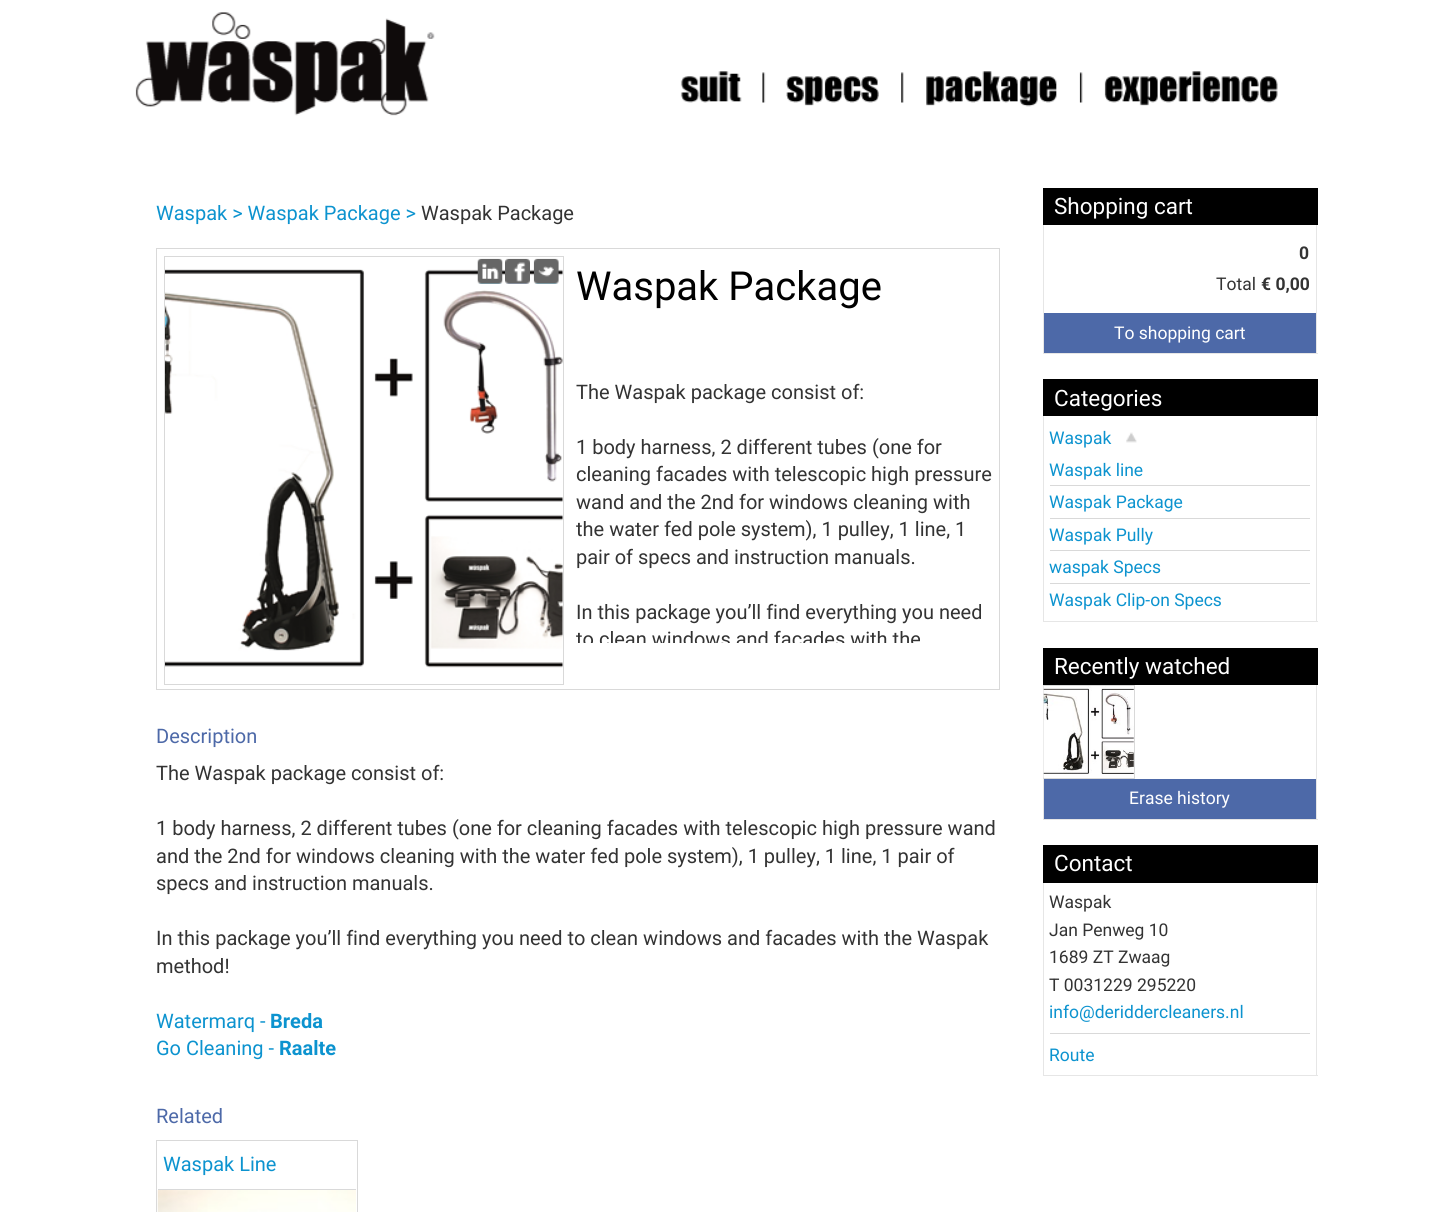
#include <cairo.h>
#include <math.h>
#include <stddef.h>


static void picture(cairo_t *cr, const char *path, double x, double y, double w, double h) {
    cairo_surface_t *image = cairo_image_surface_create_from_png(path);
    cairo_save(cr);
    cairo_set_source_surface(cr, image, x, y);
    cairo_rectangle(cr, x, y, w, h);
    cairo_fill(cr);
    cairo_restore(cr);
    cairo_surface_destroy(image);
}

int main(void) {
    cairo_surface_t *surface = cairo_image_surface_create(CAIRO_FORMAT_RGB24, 1433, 1212);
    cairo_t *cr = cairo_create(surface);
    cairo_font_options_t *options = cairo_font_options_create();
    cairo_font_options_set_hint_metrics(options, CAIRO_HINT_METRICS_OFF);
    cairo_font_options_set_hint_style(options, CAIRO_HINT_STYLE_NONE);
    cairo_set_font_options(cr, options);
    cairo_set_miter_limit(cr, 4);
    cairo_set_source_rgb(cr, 1, 1, 1);
    cairo_paint(cr);
    picture(cr, "img1.png", 135, 12, 300, 104);
    picture(cr, "img2.png", 680, 71, 62, 32);
    picture(cr, "img3.png", 762, 72, 117, 34);
    picture(cr, "img4.png", 901, 71, 182, 36);
    picture(cr, "img5.png", 1104, 71, 174, 35);
    cairo_select_font_face(cr, "Roboto", CAIRO_FONT_SLANT_NORMAL, CAIRO_FONT_WEIGHT_NORMAL);
    cairo_set_font_size(cr, 20);
    cairo_set_source_rgb(cr, 0.047, 0.576, 0.812);
    cairo_move_to(cr, 156, 220);
    cairo_show_text(cr, "Waspak > Waspak Package >");
    cairo_set_source_rgb(cr, 0.2, 0.2, 0.2);
    cairo_move_to(cr, 421, 220);
    cairo_show_text(cr, "Waspak Package");
    cairo_rectangle(cr, 156.5, 248.5, 843, 441);
    cairo_set_source_rgb(cr, 0.851, 0.851, 0.851);
    cairo_set_line_width(cr, 1);
    cairo_stroke(cr);
    cairo_rectangle(cr, 164.5, 256.5, 399, 428);
    cairo_stroke(cr);
    picture(cr, "img6.png", 165, 269, 398, 399);
    picture(cr, "img7.png", 477, 258, 26, 26);
    picture(cr, "img8.png", 505, 258, 25, 26);
    picture(cr, "img9.png", 533, 258, 26, 26);
    cairo_set_font_size(cr, 40);
    cairo_set_source_rgb(cr, 0, 0, 0);
    cairo_move_to(cr, 576, 300);
    cairo_show_text(cr, "Waspak Package");
    cairo_set_font_size(cr, 20);
    cairo_set_source_rgb(cr, 0.2, 0.2, 0.2);
    cairo_move_to(cr, 576, 399);
    cairo_show_text(cr, "The Waspak package consist of:");
    cairo_move_to(cr, 576, 454);
    cairo_show_text(cr, "1 body harness, 2 different tubes (one for");
    cairo_move_to(cr, 576, 481);
    cairo_show_text(cr, "cleaning facades with telescopic high pressure");
    cairo_move_to(cr, 576, 509);
    cairo_show_text(cr, "wand and the 2nd for windows cleaning with");
    cairo_move_to(cr, 576, 536);
    cairo_show_text(cr, "the water fed pole system), 1 pulley, 1 line, 1");
    cairo_move_to(cr, 576, 564);
    cairo_show_text(cr, "pair of specs and instruction manuals.");
    cairo_move_to(cr, 576, 619);
    cairo_show_text(cr, "In this package you’ll find everything you need");
    cairo_save(cr);
    cairo_rectangle(cr, 576, 379, 419, 264);
    cairo_clip(cr);
    cairo_move_to(cr, 576, 646);
    cairo_show_text(cr, "to clean windows and facades with the");
    cairo_restore(cr);
    cairo_set_source_rgb(cr, 0.302, 0.412, 0.659);
    cairo_move_to(cr, 156, 743);
    cairo_show_text(cr, "Description");
    cairo_set_source_rgb(cr, 0.2, 0.2, 0.2);
    cairo_move_to(cr, 156, 780);
    cairo_show_text(cr, "The Waspak package consist of:");
    cairo_move_to(cr, 156, 835);
    cairo_show_text(cr, "1 body harness, 2 different tubes (one for cleaning facades with telescopic high pressure wand");
    cairo_move_to(cr, 156, 863);
    cairo_show_text(cr, "and the 2nd for windows cleaning with the water fed pole system), 1 pulley, 1 line, 1 pair of");
    cairo_move_to(cr, 156, 890);
    cairo_show_text(cr, "specs and instruction manuals.");
    cairo_move_to(cr, 156, 945);
    cairo_show_text(cr, "In this package you’ll find everything you need to clean windows and facades with the Waspak");
    cairo_move_to(cr, 156, 973);
    cairo_show_text(cr, "method!");
    cairo_set_source_rgb(cr, 0.047, 0.576, 0.812);
    cairo_move_to(cr, 156, 1028);
    cairo_show_text(cr, "Watermarq -");
    cairo_select_font_face(cr, "Roboto", CAIRO_FONT_SLANT_NORMAL, CAIRO_FONT_WEIGHT_BOLD);
    cairo_move_to(cr, 270, 1028);
    cairo_show_text(cr, "Breda");
    cairo_select_font_face(cr, "Roboto", CAIRO_FONT_SLANT_NORMAL, CAIRO_FONT_WEIGHT_NORMAL);
    cairo_move_to(cr, 156, 1055);
    cairo_show_text(cr, "Go Cleaning -");
    cairo_select_font_face(cr, "Roboto", CAIRO_FONT_SLANT_NORMAL, CAIRO_FONT_WEIGHT_BOLD);
    cairo_move_to(cr, 279, 1055);
    cairo_show_text(cr, "Raalte");
    cairo_select_font_face(cr, "Roboto", CAIRO_FONT_SLANT_NORMAL, CAIRO_FONT_WEIGHT_NORMAL);
    cairo_set_source_rgb(cr, 0.302, 0.412, 0.659);
    cairo_move_to(cr, 156, 1123);
    cairo_show_text(cr, "Related");
    cairo_rectangle(cr, 156.5, 1140.5, 201, 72);
    cairo_set_source_rgb(cr, 0.851, 0.851, 0.851);
    cairo_stroke(cr);
    cairo_set_source_rgb(cr, 0.047, 0.576, 0.812);
    cairo_move_to(cr, 163, 1171);
    cairo_show_text(cr, "Waspak Line");
    cairo_set_source_rgb(cr, 0.851, 0.851, 0.851);
    cairo_rectangle(cr, 158, 1189, 198, 1);
    cairo_fill(cr);
    picture(cr, "img10.png", 157, 1190, 199, 22);
    cairo_set_source_rgb(cr, 0, 0, 0);
    cairo_rectangle(cr, 1043, 188, 275, 37);
    cairo_fill(cr);
    cairo_set_font_size(cr, 22.5);
    cairo_set_source_rgb(cr, 1, 1, 1);
    cairo_move_to(cr, 1054, 214);
    cairo_show_text(cr, "Shopping cart");
    cairo_set_source_rgb(cr, 0.902, 0.902, 0.902);
    cairo_rectangle(cr, 1316, 225, 1, 128);
    cairo_fill(cr);
    cairo_rectangle(cr, 1043, 225, 1, 128);
    cairo_fill(cr);
    cairo_select_font_face(cr, "Roboto", CAIRO_FONT_SLANT_NORMAL, CAIRO_FONT_WEIGHT_BOLD);
    cairo_set_font_size(cr, 17.5);
    cairo_set_source_rgb(cr, 0.2, 0.2, 0.2);
    cairo_move_to(cr, 1299, 259);
    cairo_show_text(cr, "0");
    cairo_select_font_face(cr, "Roboto", CAIRO_FONT_SLANT_NORMAL, CAIRO_FONT_WEIGHT_NORMAL);
    cairo_move_to(cr, 1216, 290);
    cairo_show_text(cr, "Total");
    cairo_select_font_face(cr, "Roboto", CAIRO_FONT_SLANT_NORMAL, CAIRO_FONT_WEIGHT_BOLD);
    cairo_move_to(cr, 1261, 290);
    cairo_show_text(cr, "€ 0,00");
    cairo_set_source_rgb(cr, 0.302, 0.412, 0.659);
    cairo_rectangle(cr, 1044, 313, 272, 40);
    cairo_fill(cr);
    cairo_select_font_face(cr, "Roboto", CAIRO_FONT_SLANT_NORMAL, CAIRO_FONT_WEIGHT_NORMAL);
    cairo_set_source_rgb(cr, 1, 1, 1);
    cairo_move_to(cr, 1114, 339);
    cairo_show_text(cr, "To shopping cart");
    cairo_set_source_rgb(cr, 0.902, 0.902, 0.902);
    cairo_rectangle(cr, 1043, 353, 275, 1);
    cairo_fill(cr);
    cairo_set_source_rgb(cr, 0, 0, 0);
    cairo_rectangle(cr, 1043, 379, 275, 37);
    cairo_fill(cr);
    cairo_set_font_size(cr, 22.5);
    cairo_set_source_rgb(cr, 1, 1, 1);
    cairo_move_to(cr, 1054, 406);
    cairo_show_text(cr, "Categories");
    cairo_set_source_rgb(cr, 0.902, 0.902, 0.902);
    cairo_rectangle(cr, 1316, 416, 1, 205);
    cairo_fill(cr);
    cairo_rectangle(cr, 1043, 416, 1, 205);
    cairo_fill(cr);
    cairo_set_font_size(cr, 17.5);
    cairo_set_source_rgb(cr, 0.047, 0.576, 0.812);
    cairo_move_to(cr, 1049, 444);
    cairo_show_text(cr, "Waspak");
    picture(cr, "img11.png", 1126, 432, 11, 11);
    cairo_move_to(cr, 1049, 476);
    cairo_show_text(cr, "Waspak line");
    cairo_set_source_rgb(cr, 0.851, 0.851, 0.851);
    cairo_rectangle(cr, 1050, 485, 260, 1);
    cairo_fill(cr);
    cairo_set_source_rgb(cr, 0.047, 0.576, 0.812);
    cairo_move_to(cr, 1049, 508);
    cairo_show_text(cr, "Waspak Package");
    cairo_set_source_rgb(cr, 0.851, 0.851, 0.851);
    cairo_rectangle(cr, 1050, 518, 260, 1);
    cairo_fill(cr);
    cairo_set_source_rgb(cr, 0.047, 0.576, 0.812);
    cairo_move_to(cr, 1049, 541);
    cairo_show_text(cr, "Waspak Pully");
    cairo_set_source_rgb(cr, 0.851, 0.851, 0.851);
    cairo_rectangle(cr, 1050, 550, 260, 1);
    cairo_fill(cr);
    cairo_set_source_rgb(cr, 0.047, 0.576, 0.812);
    cairo_move_to(cr, 1049, 573);
    cairo_show_text(cr, "waspak Specs");
    cairo_set_source_rgb(cr, 0.851, 0.851, 0.851);
    cairo_rectangle(cr, 1050, 583, 260, 1);
    cairo_fill(cr);
    cairo_set_source_rgb(cr, 0.047, 0.576, 0.812);
    cairo_move_to(cr, 1049, 606);
    cairo_show_text(cr, "Waspak Clip-on Specs");
    cairo_set_source_rgb(cr, 0.902, 0.902, 0.902);
    cairo_rectangle(cr, 1043, 621, 275, 1);
    cairo_fill(cr);
    cairo_set_source_rgb(cr, 0, 0, 0);
    cairo_rectangle(cr, 1043, 648, 275, 37);
    cairo_fill(cr);
    cairo_set_font_size(cr, 22.5);
    cairo_set_source_rgb(cr, 1, 1, 1);
    cairo_move_to(cr, 1054, 674);
    cairo_show_text(cr, "Recently watched");
    cairo_set_source_rgb(cr, 0.902, 0.902, 0.902);
    cairo_rectangle(cr, 1316, 685, 1, 134);
    cairo_fill(cr);
    cairo_rectangle(cr, 1043, 685, 1, 134);
    cairo_fill(cr);
    cairo_set_source_rgb(cr, 0.851, 0.851, 0.851);
    cairo_rectangle(cr, 1043, 685, 92, 1);
    cairo_fill(cr);
    cairo_rectangle(cr, 1134, 685, 1, 94);
    cairo_fill(cr);
    cairo_rectangle(cr, 1043, 778, 92, 1);
    cairo_fill(cr);
    picture(cr, "img12.png", 1043, 686, 91, 91);
    cairo_set_source_rgb(cr, 0.302, 0.412, 0.659);
    cairo_rectangle(cr, 1044, 779, 272, 40);
    cairo_fill(cr);
    cairo_set_font_size(cr, 17.5);
    cairo_set_source_rgb(cr, 1, 1, 1);
    cairo_move_to(cr, 1129, 804);
    cairo_show_text(cr, "Erase history");
    cairo_set_source_rgb(cr, 0.902, 0.902, 0.902);
    cairo_rectangle(cr, 1043, 819, 275, 1);
    cairo_fill(cr);
    cairo_set_source_rgb(cr, 0, 0, 0);
    cairo_rectangle(cr, 1043, 845, 275, 38);
    cairo_fill(cr);
    cairo_set_font_size(cr, 22.5);
    cairo_set_source_rgb(cr, 1, 1, 1);
    cairo_move_to(cr, 1054, 871);
    cairo_show_text(cr, "Contact");
    cairo_set_source_rgb(cr, 0.902, 0.902, 0.902);
    cairo_rectangle(cr, 1316, 883, 1, 192);
    cairo_fill(cr);
    cairo_rectangle(cr, 1043, 883, 1, 192);
    cairo_fill(cr);
    cairo_set_font_size(cr, 17.5);
    cairo_set_source_rgb(cr, 0.2, 0.2, 0.2);
    cairo_move_to(cr, 1049, 908);
    cairo_show_text(cr, "Waspak");
    cairo_move_to(cr, 1049, 936);
    cairo_show_text(cr, "Jan Penweg 10");
    cairo_move_to(cr, 1049, 963);
    cairo_show_text(cr, "1689 ZT Zwaag");
    cairo_move_to(cr, 1049, 991);
    cairo_show_text(cr, "T 0031229 295220");
    cairo_set_source_rgb(cr, 0.047, 0.576, 0.812);
    cairo_move_to(cr, 1049, 1018);
    cairo_show_text(cr, "info@deriddercleaners.nl");
    cairo_set_source_rgb(cr, 0.851, 0.851, 0.851);
    cairo_rectangle(cr, 1050, 1033, 260, 1);
    cairo_fill(cr);
    cairo_set_source_rgb(cr, 0.047, 0.576, 0.812);
    cairo_move_to(cr, 1049, 1061);
    cairo_show_text(cr, "Route");
    cairo_set_source_rgb(cr, 0.902, 0.902, 0.902);
    cairo_rectangle(cr, 1043, 1075, 275, 1);
    cairo_fill(cr);
    cairo_surface_write_to_png(surface, "page.png");
    cairo_font_options_destroy(options);
    cairo_destroy(cr);
    cairo_surface_destroy(surface);
    return 0;
}
